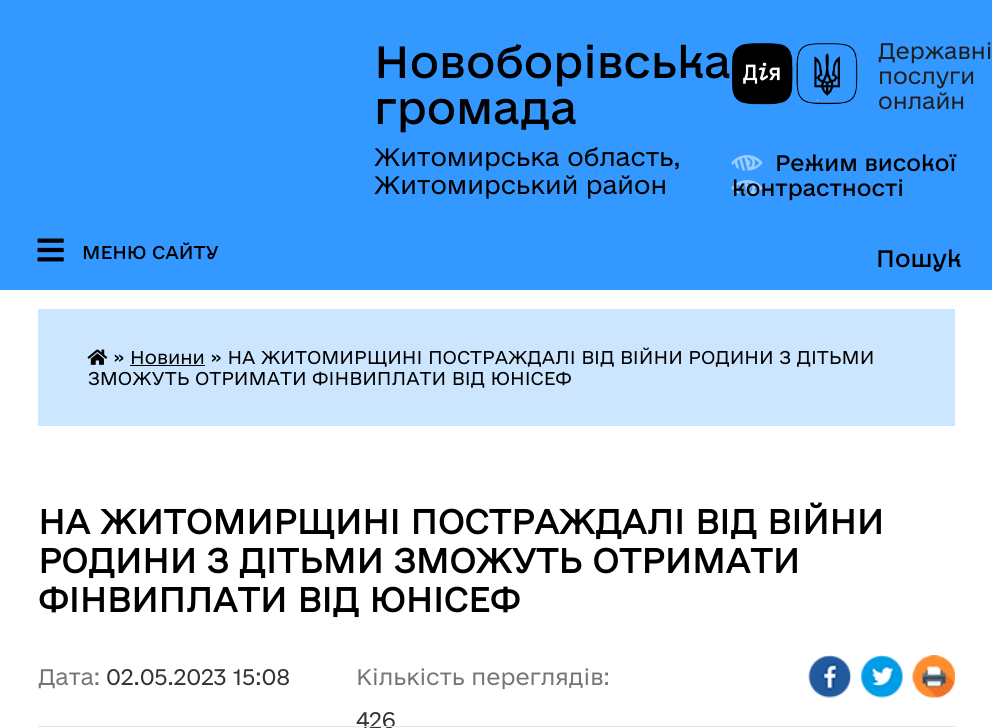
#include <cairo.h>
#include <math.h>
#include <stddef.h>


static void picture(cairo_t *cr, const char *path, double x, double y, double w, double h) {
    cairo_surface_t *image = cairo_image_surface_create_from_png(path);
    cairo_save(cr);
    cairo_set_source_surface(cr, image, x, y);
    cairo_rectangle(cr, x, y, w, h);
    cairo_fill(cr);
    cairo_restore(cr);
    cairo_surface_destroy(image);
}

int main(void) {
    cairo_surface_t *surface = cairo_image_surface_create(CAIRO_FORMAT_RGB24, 992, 728);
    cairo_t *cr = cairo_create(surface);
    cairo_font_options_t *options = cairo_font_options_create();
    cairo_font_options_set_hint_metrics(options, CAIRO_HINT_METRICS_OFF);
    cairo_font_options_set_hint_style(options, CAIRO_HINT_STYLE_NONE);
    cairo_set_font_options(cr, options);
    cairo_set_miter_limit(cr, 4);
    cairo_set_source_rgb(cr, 1, 1, 1);
    cairo_paint(cr);
    cairo_set_source_rgb(cr, 0.2, 0.596, 1);
    cairo_rectangle(cr, 0, 0, 992, 290);
    cairo_fill(cr);
    cairo_select_font_face(cr, "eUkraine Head", CAIRO_FONT_SLANT_NORMAL, CAIRO_FONT_WEIGHT_NORMAL);
    cairo_set_font_size(cr, 42.5);
    cairo_set_source_rgb(cr, 0, 0, 0);
    cairo_move_to(cr, 374, 78);
    cairo_show_text(cr, "Новоборівська");
    cairo_move_to(cr, 374, 124);
    cairo_show_text(cr, "громада");
    cairo_select_font_face(cr, "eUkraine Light", CAIRO_FONT_SLANT_NORMAL, CAIRO_FONT_WEIGHT_NORMAL);
    cairo_set_font_size(cr, 23.75);
    cairo_move_to(cr, 374, 166);
    cairo_show_text(cr, "Житомирська область,");
    cairo_move_to(cr, 374, 194);
    cairo_show_text(cr, "Житомирський район");
    picture(cr, "img1.png", 732, 43, 126, 62);
    cairo_set_font_size(cr, 21.25);
    cairo_set_source_rgb(cr, 0.114, 0.114, 0.106);
    cairo_move_to(cr, 878, 59);
    cairo_show_text(cr, "Державні");
    cairo_move_to(cr, 878, 84);
    cairo_show_text(cr, "послуги");
    cairo_move_to(cr, 878, 109);
    cairo_show_text(cr, "онлайн");
    picture(cr, "img2.png", 731, 155, 32, 41);
    cairo_select_font_face(cr, "eUkraine Head", CAIRO_FONT_SLANT_NORMAL, CAIRO_FONT_WEIGHT_NORMAL);
    cairo_set_source_rgb(cr, 0, 0, 0);
    cairo_move_to(cr, 775, 171);
    cairo_show_text(cr, "Режим високої");
    cairo_move_to(cr, 732, 196);
    cairo_show_text(cr, "контрастності");
    picture(cr, "img3.png", 37, 238, 27, 24);
    cairo_set_font_size(cr, 17.5);
    cairo_move_to(cr, 82, 259);
    cairo_show_text(cr, "МЕНЮ САЙТУ");
    cairo_set_font_size(cr, 22.5);
    cairo_move_to(cr, 876, 267);
    cairo_show_text(cr, "Пошук");
    cairo_set_source_rgb(cr, 0.8, 0.902, 1);
    cairo_rectangle(cr, 38, 309, 917, 117);
    cairo_fill(cr);
    picture(cr, "img4.png", 87, 349, 21, 16);
    cairo_select_font_face(cr, "eUkraine Light", CAIRO_FONT_SLANT_NORMAL, CAIRO_FONT_WEIGHT_NORMAL);
    cairo_set_font_size(cr, 17.5);
    cairo_set_source_rgb(cr, 0, 0, 0);
    cairo_move_to(cr, 113, 364);
    cairo_show_text(cr, "» Новини » НА ЖИТОМИРЩИНІ ПОСТРАЖДАЛІ ВІД ВІЙНИ РОДИНИ З ДІТЬМИ");
    cairo_rectangle(cr, 130, 365, 75, 1);
    cairo_fill(cr);
    cairo_move_to(cr, 88, 385);
    cairo_show_text(cr, "ЗМОЖУТЬ ОТРИМАТИ ФІНВИПЛАТИ ВІД ЮНІСЕФ");
    cairo_select_font_face(cr, "eUkraine", CAIRO_FONT_SLANT_NORMAL, CAIRO_FONT_WEIGHT_BOLD);
    cairo_set_font_size(cr, 32.5);
    cairo_move_to(cr, 38, 534);
    cairo_show_text(cr, "НА ЖИТОМИРЩИНІ ПОСТРАЖДАЛІ ВІД ВІЙНИ");
    cairo_move_to(cr, 38, 573);
    cairo_show_text(cr, "РОДИНИ З ДІТЬМИ ЗМОЖУТЬ ОТРИМАТИ");
    cairo_move_to(cr, 38, 612);
    cairo_show_text(cr, "ФІНВИПЛАТИ ВІД ЮНІСЕФ");
    cairo_select_font_face(cr, "eUkraine Light", CAIRO_FONT_SLANT_NORMAL, CAIRO_FONT_WEIGHT_NORMAL);
    cairo_set_font_size(cr, 21.25);
    cairo_set_source_rgb(cr, 0.459, 0.459, 0.459);
    cairo_move_to(cr, 38, 685);
    cairo_show_text(cr, "Дата:");
    cairo_set_source_rgb(cr, 0.2, 0.2, 0.2);
    cairo_move_to(cr, 106, 685);
    cairo_show_text(cr, "02.05.2023 15:08");
    cairo_set_source_rgb(cr, 0.459, 0.459, 0.459);
    cairo_move_to(cr, 356, 685);
    cairo_show_text(cr, "Кількість переглядів:");
    cairo_set_source_rgb(cr, 0.2, 0.2, 0.2);
    cairo_move_to(cr, 356, 728);
    cairo_show_text(cr, "426");
    picture(cr, "img5.png", 808, 655, 44, 43);
    picture(cr, "img6.png", 861, 655, 42, 43);
    picture(cr, "img7.png", 912, 655, 43, 43);
    cairo_set_source_rgb(cr, 0.898, 0.898, 0.898);
    cairo_rectangle(cr, 38, 726, 917, 1);
    cairo_fill(cr);
    cairo_surface_write_to_png(surface, "page.png");
    cairo_font_options_destroy(options);
    cairo_destroy(cr);
    cairo_surface_destroy(surface);
    return 0;
}
